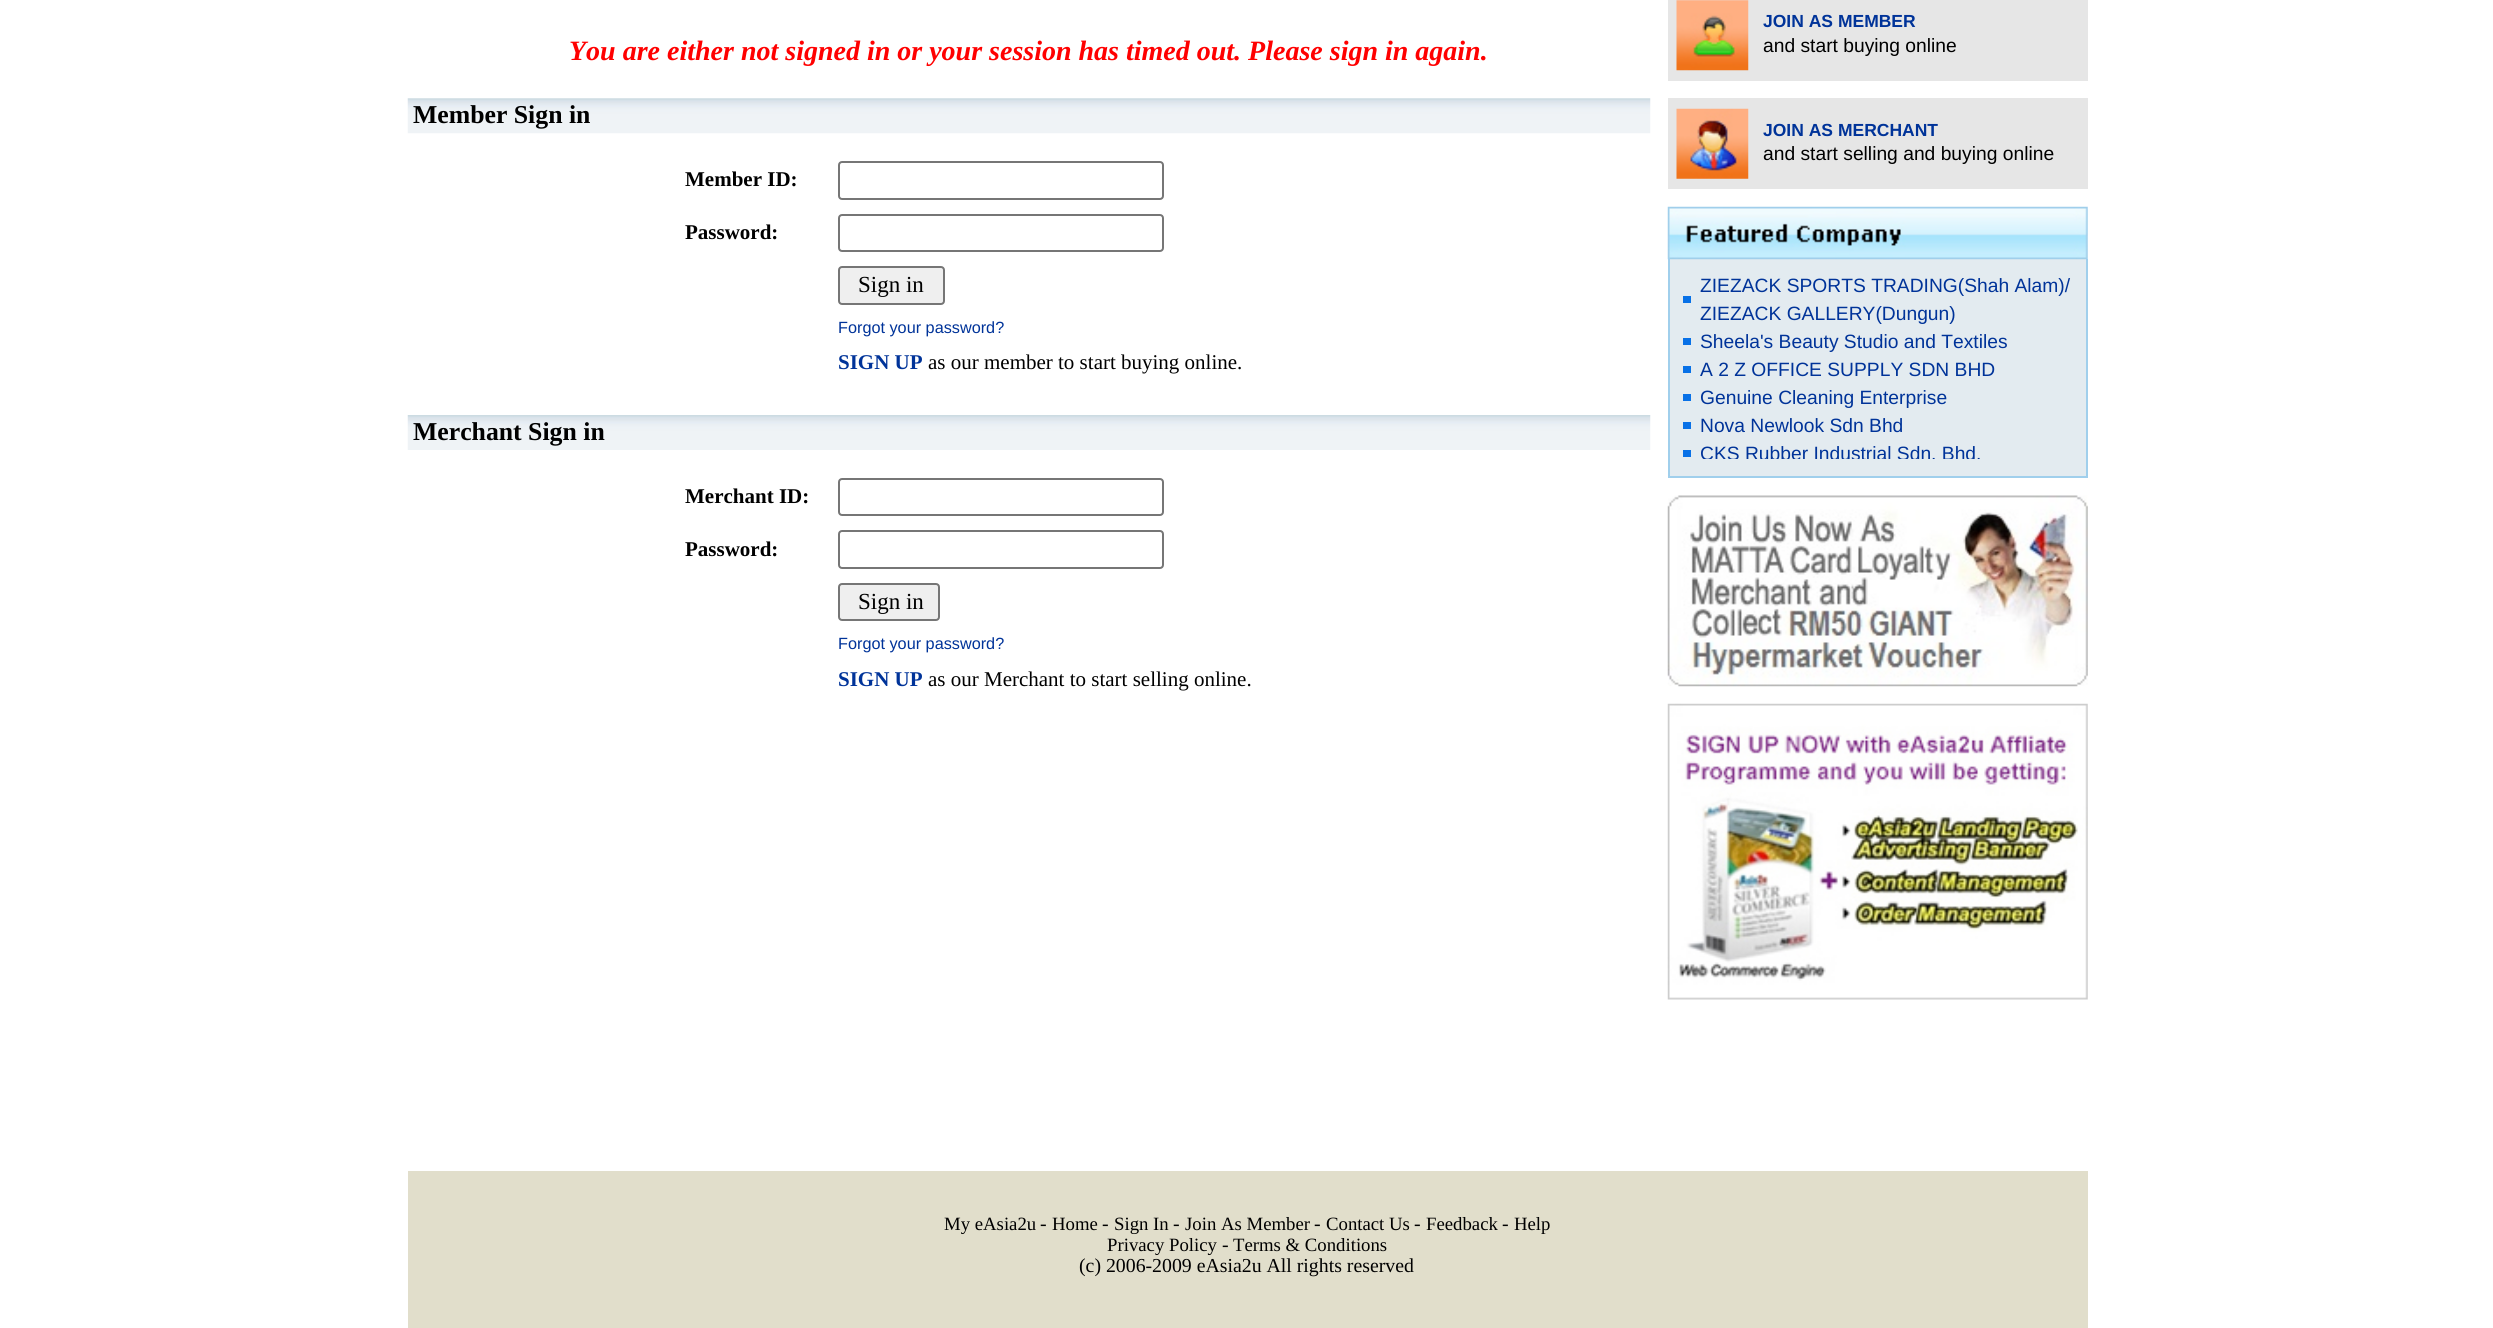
#include <cairo.h>
#include <math.h>
#include <stddef.h>


static void round_rect(cairo_t *cr, double x, double y, double w, double h, double r) {
    cairo_new_sub_path(cr);
    cairo_arc(cr, x + w - r, y + h - r, r, 0, M_PI / 2);
    cairo_arc(cr, x + r, y + h - r, r, M_PI / 2, M_PI);
    cairo_arc(cr, x + r, y + r, r, M_PI, 1.5 * M_PI);
    cairo_arc(cr, x + w - r, y + r, r, 1.5 * M_PI, 2 * M_PI);
    cairo_close_path(cr);
}

static void picture(cairo_t *cr, const char *path, double x, double y, double w, double h) {
    cairo_surface_t *image = cairo_image_surface_create_from_png(path);
    cairo_save(cr);
    cairo_set_source_surface(cr, image, x, y);
    cairo_rectangle(cr, x, y, w, h);
    cairo_fill(cr);
    cairo_restore(cr);
    cairo_surface_destroy(image);
}

int main(void) {
    cairo_surface_t *surface = cairo_image_surface_create(CAIRO_FORMAT_RGB24, 2493, 1328);
    cairo_t *cr = cairo_create(surface);
    cairo_font_options_t *options = cairo_font_options_create();
    cairo_font_options_set_hint_metrics(options, CAIRO_HINT_METRICS_OFF);
    cairo_font_options_set_hint_style(options, CAIRO_HINT_STYLE_NONE);
    cairo_set_font_options(cr, options);
    cairo_set_miter_limit(cr, 4);
    cairo_set_source_rgb(cr, 1, 1, 1);
    cairo_paint(cr);
    cairo_select_font_face(cr, "Liberation Serif", CAIRO_FONT_SLANT_ITALIC, CAIRO_FONT_WEIGHT_BOLD);
    cairo_set_font_size(cr, 28);
    cairo_set_source_rgb(cr, 1, 0, 0);
    cairo_move_to(cr, 569, 60);
    cairo_show_text(cr, "You are either not signed in or your session has timed out. Please sign in again.");
    picture(cr, "img1.png", 407, 98, 1244, 36);
    cairo_select_font_face(cr, "Liberation Serif", CAIRO_FONT_SLANT_NORMAL, CAIRO_FONT_WEIGHT_BOLD);
    cairo_set_font_size(cr, 25.75);
    cairo_set_source_rgb(cr, 0, 0, 0);
    cairo_move_to(cr, 413, 123);
    cairo_show_text(cr, "Member Sign in");
    cairo_set_font_size(cr, 21);
    cairo_move_to(cr, 685, 186);
    cairo_show_text(cr, "Member ID:");
    round_rect(cr, 839, 162, 324, 37, 3);
    cairo_set_source_rgb(cr, 0.463, 0.463, 0.463);
    cairo_stroke(cr);
    cairo_set_source_rgb(cr, 0, 0, 0);
    cairo_move_to(cr, 685, 239);
    cairo_show_text(cr, "Password:");
    round_rect(cr, 839, 215, 324, 36, 3);
    cairo_set_source_rgb(cr, 0.463, 0.463, 0.463);
    cairo_stroke(cr);
    cairo_set_source_rgb(cr, 0.937, 0.937, 0.937);
    round_rect(cr, 839, 267, 105, 37, 3);
    cairo_fill_preserve(cr);
    cairo_set_source_rgb(cr, 0.463, 0.463, 0.463);
    cairo_stroke(cr);
    cairo_select_font_face(cr, "Liberation Serif", CAIRO_FONT_SLANT_NORMAL, CAIRO_FONT_WEIGHT_NORMAL);
    cairo_set_font_size(cr, 23);
    cairo_set_source_rgb(cr, 0, 0, 0);
    cairo_move_to(cr, 858, 292);
    cairo_show_text(cr, "Sign in");
    cairo_select_font_face(cr, "Liberation Sans", CAIRO_FONT_SLANT_NORMAL, CAIRO_FONT_WEIGHT_NORMAL);
    cairo_set_font_size(cr, 16.25);
    cairo_set_source_rgb(cr, 0, 0.2, 0.6);
    cairo_move_to(cr, 838, 333);
    cairo_show_text(cr, "Forgot your password?");
    cairo_select_font_face(cr, "Liberation Serif", CAIRO_FONT_SLANT_NORMAL, CAIRO_FONT_WEIGHT_BOLD);
    cairo_set_font_size(cr, 21);
    cairo_move_to(cr, 838, 369);
    cairo_show_text(cr, "SIGN UP");
    cairo_select_font_face(cr, "Liberation Serif", CAIRO_FONT_SLANT_NORMAL, CAIRO_FONT_WEIGHT_NORMAL);
    cairo_set_source_rgb(cr, 0, 0, 0);
    cairo_move_to(cr, 928, 369);
    cairo_show_text(cr, "as our member to start buying online.");
    picture(cr, "img2.png", 407, 415, 1244, 35);
    cairo_select_font_face(cr, "Liberation Serif", CAIRO_FONT_SLANT_NORMAL, CAIRO_FONT_WEIGHT_BOLD);
    cairo_set_font_size(cr, 25.75);
    cairo_move_to(cr, 413, 440);
    cairo_show_text(cr, "Merchant Sign in");
    cairo_set_font_size(cr, 21);
    cairo_move_to(cr, 685, 503);
    cairo_show_text(cr, "Merchant ID:");
    round_rect(cr, 839, 479, 324, 36, 3);
    cairo_set_source_rgb(cr, 0.463, 0.463, 0.463);
    cairo_stroke(cr);
    cairo_set_source_rgb(cr, 0, 0, 0);
    cairo_move_to(cr, 685, 556);
    cairo_show_text(cr, "Password:");
    round_rect(cr, 839, 531, 324, 37, 3);
    cairo_set_source_rgb(cr, 0.463, 0.463, 0.463);
    cairo_stroke(cr);
    cairo_set_source_rgb(cr, 0.937, 0.937, 0.937);
    round_rect(cr, 839, 584, 100, 36, 3);
    cairo_fill_preserve(cr);
    cairo_set_source_rgb(cr, 0.463, 0.463, 0.463);
    cairo_stroke(cr);
    cairo_select_font_face(cr, "Liberation Serif", CAIRO_FONT_SLANT_NORMAL, CAIRO_FONT_WEIGHT_NORMAL);
    cairo_set_font_size(cr, 23);
    cairo_set_source_rgb(cr, 0, 0, 0);
    cairo_move_to(cr, 858, 609);
    cairo_show_text(cr, "Sign in");
    cairo_select_font_face(cr, "Liberation Sans", CAIRO_FONT_SLANT_NORMAL, CAIRO_FONT_WEIGHT_NORMAL);
    cairo_set_font_size(cr, 16.25);
    cairo_set_source_rgb(cr, 0, 0.2, 0.6);
    cairo_move_to(cr, 838, 649);
    cairo_show_text(cr, "Forgot your password?");
    cairo_select_font_face(cr, "Liberation Serif", CAIRO_FONT_SLANT_NORMAL, CAIRO_FONT_WEIGHT_BOLD);
    cairo_set_font_size(cr, 21);
    cairo_move_to(cr, 838, 686);
    cairo_show_text(cr, "SIGN UP");
    cairo_select_font_face(cr, "Liberation Serif", CAIRO_FONT_SLANT_NORMAL, CAIRO_FONT_WEIGHT_NORMAL);
    cairo_set_source_rgb(cr, 0, 0, 0);
    cairo_move_to(cr, 928, 686);
    cairo_show_text(cr, "as our Merchant to start selling online.");
    cairo_set_source_rgb(cr, 0.902, 0.902, 0.902);
    cairo_rectangle(cr, 1668, 0, 420, 81);
    cairo_fill(cr);
    picture(cr, "img3.png", 1676, 0, 73, 71);
    cairo_select_font_face(cr, "Liberation Sans", CAIRO_FONT_SLANT_NORMAL, CAIRO_FONT_WEIGHT_BOLD);
    cairo_set_font_size(cr, 17.5);
    cairo_set_source_rgb(cr, 0, 0.2, 0.6);
    cairo_move_to(cr, 1763, 27);
    cairo_show_text(cr, "JOIN AS MEMBER");
    cairo_select_font_face(cr, "Liberation Sans", CAIRO_FONT_SLANT_NORMAL, CAIRO_FONT_WEIGHT_NORMAL);
    cairo_set_font_size(cr, 19.25);
    cairo_set_source_rgb(cr, 0, 0, 0);
    cairo_move_to(cr, 1763, 52);
    cairo_show_text(cr, "and start buying online");
    cairo_set_source_rgb(cr, 0.902, 0.902, 0.902);
    cairo_rectangle(cr, 1668, 98, 420, 91);
    cairo_fill(cr);
    picture(cr, "img4.png", 1676, 108, 73, 71);
    cairo_select_font_face(cr, "Liberation Sans", CAIRO_FONT_SLANT_NORMAL, CAIRO_FONT_WEIGHT_BOLD);
    cairo_set_font_size(cr, 17.5);
    cairo_set_source_rgb(cr, 0, 0.2, 0.6);
    cairo_move_to(cr, 1763, 136);
    cairo_show_text(cr, "JOIN AS MERCHANT");
    cairo_select_font_face(cr, "Liberation Sans", CAIRO_FONT_SLANT_NORMAL, CAIRO_FONT_WEIGHT_NORMAL);
    cairo_set_font_size(cr, 19.25);
    cairo_set_source_rgb(cr, 0, 0, 0);
    cairo_move_to(cr, 1763, 160);
    cairo_show_text(cr, "and start selling and buying online");
    cairo_set_source_rgb(cr, 0.89, 0.918, 0.941);
    cairo_rectangle(cr, 1670, 259, 416, 217);
    cairo_fill(cr);
    cairo_set_source_rgb(cr, 0.627, 0.812, 0.922);
    cairo_rectangle(cr, 2086, 259, 2, 219);
    cairo_fill(cr);
    cairo_rectangle(cr, 1668, 476, 420, 2);
    cairo_fill(cr);
    cairo_rectangle(cr, 1668, 259, 2, 219);
    cairo_fill(cr);
    picture(cr, "img5.png", 1667, 206, 421, 54);
    cairo_set_source_rgb(cr, 0.035, 0.443, 0.906);
    cairo_rectangle(cr, 1683, 296, 8, 7);
    cairo_fill(cr);
    cairo_set_source_rgb(cr, 0, 0.2, 0.6);
    cairo_move_to(cr, 1700, 292);
    cairo_show_text(cr, "ZIEZACK SPORTS TRADING(Shah Alam)/");
    cairo_move_to(cr, 1700, 320);
    cairo_show_text(cr, "ZIEZACK GALLERY(Dungun)");
    cairo_set_source_rgb(cr, 0.035, 0.443, 0.906);
    cairo_rectangle(cr, 1683, 338, 8, 7);
    cairo_fill(cr);
    cairo_set_source_rgb(cr, 0, 0.2, 0.6);
    cairo_move_to(cr, 1700, 348);
    cairo_show_text(cr, "Sheela's Beauty Studio and Textiles");
    cairo_set_source_rgb(cr, 0.035, 0.443, 0.906);
    cairo_rectangle(cr, 1683, 366, 8, 7);
    cairo_fill(cr);
    cairo_set_source_rgb(cr, 0, 0.2, 0.6);
    cairo_move_to(cr, 1700, 376);
    cairo_show_text(cr, "A 2 Z OFFICE SUPPLY SDN BHD");
    cairo_set_source_rgb(cr, 0.035, 0.443, 0.906);
    cairo_rectangle(cr, 1683, 394, 8, 7);
    cairo_fill(cr);
    cairo_set_source_rgb(cr, 0, 0.2, 0.6);
    cairo_move_to(cr, 1700, 404);
    cairo_show_text(cr, "Genuine Cleaning Enterprise");
    cairo_set_source_rgb(cr, 0.035, 0.443, 0.906);
    cairo_rectangle(cr, 1683, 422, 8, 7);
    cairo_fill(cr);
    cairo_set_source_rgb(cr, 0, 0.2, 0.6);
    cairo_move_to(cr, 1700, 432);
    cairo_show_text(cr, "Nova Newlook Sdn Bhd");
    cairo_set_source_rgb(cr, 0.035, 0.443, 0.906);
    cairo_rectangle(cr, 1683, 450, 8, 7);
    cairo_fill(cr);
    cairo_save(cr);
    cairo_rectangle(cr, 1671, 277, 413, 182);
    cairo_clip(cr);
    cairo_set_source_rgb(cr, 0, 0.2, 0.6);
    cairo_move_to(cr, 1700, 460);
    cairo_show_text(cr, "CKS Rubber Industrial Sdn. Bhd.");
    cairo_restore(cr);
    picture(cr, "img6.png", 1667, 495, 421, 192);
    picture(cr, "img7.png", 1667, 703, 421, 297);
    cairo_set_source_rgb(cr, 0.882, 0.871, 0.796);
    cairo_rectangle(cr, 408, 1171, 1680, 157);
    cairo_fill(cr);
    cairo_select_font_face(cr, "Liberation Serif", CAIRO_FONT_SLANT_NORMAL, CAIRO_FONT_WEIGHT_NORMAL);
    cairo_set_font_size(cr, 18.75);
    cairo_set_source_rgb(cr, 0, 0, 0);
    cairo_move_to(cr, 944, 1230);
    cairo_show_text(cr, "My eAsia2u");
    cairo_set_font_size(cr, 19.8);
    cairo_move_to(cr, 1040, 1230);
    cairo_show_text(cr, "-");
    cairo_set_font_size(cr, 18.75);
    cairo_move_to(cr, 1052, 1230);
    cairo_show_text(cr, "Home");
    cairo_set_font_size(cr, 19.8);
    cairo_move_to(cr, 1102, 1230);
    cairo_show_text(cr, "-");
    cairo_set_font_size(cr, 18.75);
    cairo_move_to(cr, 1114, 1230);
    cairo_show_text(cr, "Sign In");
    cairo_set_font_size(cr, 19.8);
    cairo_move_to(cr, 1173, 1230);
    cairo_show_text(cr, "-");
    cairo_set_font_size(cr, 18.75);
    cairo_move_to(cr, 1185, 1230);
    cairo_show_text(cr, "Join As Member");
    cairo_set_font_size(cr, 19.8);
    cairo_move_to(cr, 1314, 1230);
    cairo_show_text(cr, "-");
    cairo_set_font_size(cr, 18.75);
    cairo_move_to(cr, 1326, 1230);
    cairo_show_text(cr, "Contact Us");
    cairo_set_font_size(cr, 19.8);
    cairo_move_to(cr, 1414, 1230);
    cairo_show_text(cr, "-");
    cairo_set_font_size(cr, 18.75);
    cairo_move_to(cr, 1426, 1230);
    cairo_show_text(cr, "Feedback");
    cairo_set_font_size(cr, 19.8);
    cairo_move_to(cr, 1502, 1230);
    cairo_show_text(cr, "-");
    cairo_set_font_size(cr, 18.75);
    cairo_move_to(cr, 1514, 1230);
    cairo_show_text(cr, "Help");
    cairo_move_to(cr, 1107, 1251);
    cairo_show_text(cr, "Privacy Policy");
    cairo_set_font_size(cr, 19.8);
    cairo_move_to(cr, 1222, 1251);
    cairo_show_text(cr, "-");
    cairo_set_font_size(cr, 18.75);
    cairo_move_to(cr, 1233, 1251);
    cairo_show_text(cr, "Terms & Conditions");
    cairo_set_font_size(cr, 19.8);
    cairo_move_to(cr, 1079, 1272);
    cairo_show_text(cr, "(c) 2006-2009 eAsia2u All rights reserved");
    cairo_surface_write_to_png(surface, "page.png");
    cairo_font_options_destroy(options);
    cairo_destroy(cr);
    cairo_surface_destroy(surface);
    return 0;
}
